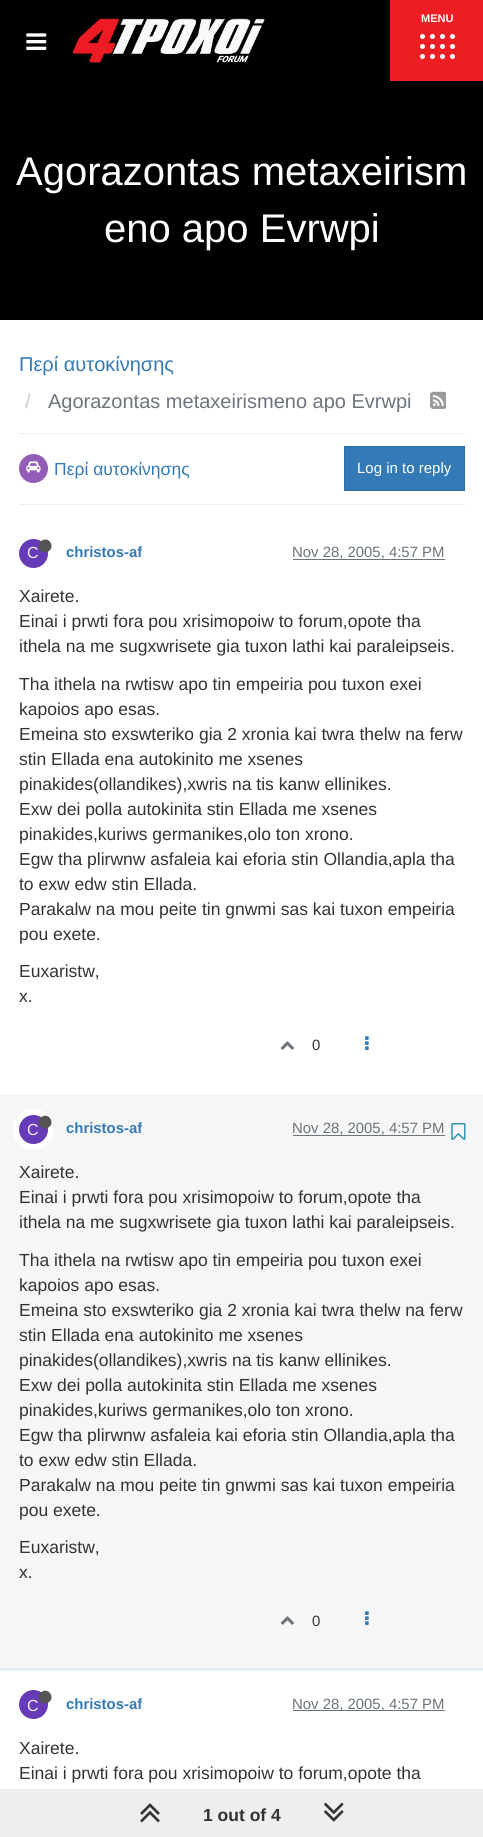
#include <cairo.h>
#include <math.h>
#include <stddef.h>


static void round_rect(cairo_t *cr, double x, double y, double w, double h, double r) {
    cairo_new_sub_path(cr);
    cairo_arc(cr, x + w - r, y + h - r, r, 0, M_PI / 2);
    cairo_arc(cr, x + r, y + h - r, r, M_PI / 2, M_PI);
    cairo_arc(cr, x + r, y + r, r, M_PI, 1.5 * M_PI);
    cairo_arc(cr, x + w - r, y + r, r, 1.5 * M_PI, 2 * M_PI);
    cairo_close_path(cr);
}

static void shadow(cairo_t *cr, double x, double y, double w, double h, double r, double blur, double alpha) {
    cairo_push_group_with_content(cr, CAIRO_CONTENT_ALPHA);
    cairo_set_operator(cr, CAIRO_OPERATOR_SOURCE);
    for (int i = 15; i >= -15 && fmin(w, h) + blur * i / 3 > 0; i -= 2) {
        double e = blur * i / 6;
        cairo_set_source_rgba(cr, 0, 0, 0, alpha * erfc((i - 1) / 8.5) / 2);
        round_rect(cr, x - e, y - e, w + 2 * e, h + 2 * e, fmax(0, fmin(r + e + blur * .6, fmin(w, h) / 2 + e)));
        cairo_fill(cr);
    }
    cairo_pattern_t *soft = cairo_pop_group(cr);
    cairo_mask(cr, soft);
    cairo_pattern_destroy(soft);
}

static void picture(cairo_t *cr, const char *path, double x, double y, double w, double h) {
    cairo_surface_t *image = cairo_image_surface_create_from_png(path);
    cairo_save(cr);
    cairo_set_source_surface(cr, image, x, y);
    cairo_rectangle(cr, x, y, w, h);
    cairo_fill(cr);
    cairo_restore(cr);
    cairo_surface_destroy(image);
}

int main(void) {
    cairo_surface_t *surface = cairo_image_surface_create(CAIRO_FORMAT_RGB24, 483, 1837);
    cairo_t *cr = cairo_create(surface);
    cairo_font_options_t *options = cairo_font_options_create();
    cairo_font_options_set_hint_metrics(options, CAIRO_HINT_METRICS_OFF);
    cairo_font_options_set_hint_style(options, CAIRO_HINT_STYLE_NONE);
    cairo_set_font_options(cr, options);
    cairo_set_miter_limit(cr, 4);
    cairo_set_source_rgb(cr, 1, 1, 1);
    cairo_paint(cr);
    cairo_set_source_rgb(cr, 0, 0, 0);
    cairo_rectangle(cr, 0, 0, 390, 81);
    cairo_fill(cr);
    picture(cr, "img1.png", 26, 33, 21, 17);
    picture(cr, "img2.png", 72, 18, 193, 45);
    cairo_set_source_rgb(cr, 0.929, 0.114, 0.141);
    cairo_rectangle(cr, 390, 0, 93, 81);
    cairo_fill(cr);
    cairo_select_font_face(cr, "Liberation Sans", CAIRO_FONT_SLANT_NORMAL, CAIRO_FONT_WEIGHT_BOLD);
    cairo_set_font_size(cr, 11);
    cairo_set_source_rgb(cr, 1, 1, 1);
    cairo_move_to(cr, 421, 22);
    cairo_show_text(cr, "MENU");
    cairo_new_path(cr);
    cairo_arc(cr, 422.5, 36.5, 2.5, 0, 2 * M_PI);
    cairo_fill(cr);
    cairo_arc(cr, 432.5, 36.5, 2.5, 0, 2 * M_PI);
    cairo_fill(cr);
    cairo_arc(cr, 442.5, 36.5, 2.5, 0, 2 * M_PI);
    cairo_fill(cr);
    cairo_arc(cr, 452.5, 36.5, 2.5, 0, 2 * M_PI);
    cairo_fill(cr);
    cairo_arc(cr, 422.5, 46.5, 2.5, 0, 2 * M_PI);
    cairo_fill(cr);
    cairo_arc(cr, 432.5, 46.5, 2.5, 0, 2 * M_PI);
    cairo_fill(cr);
    cairo_arc(cr, 442.5, 46.5, 2.5, 0, 2 * M_PI);
    cairo_fill(cr);
    cairo_arc(cr, 452.5, 46.5, 2.5, 0, 2 * M_PI);
    cairo_fill(cr);
    cairo_arc(cr, 422.5, 56.5, 2.5, 0, 2 * M_PI);
    cairo_fill(cr);
    cairo_arc(cr, 432.5, 56.5, 2.5, 0, 2 * M_PI);
    cairo_fill(cr);
    cairo_arc(cr, 442.5, 56.5, 2.5, 0, 2 * M_PI);
    cairo_fill(cr);
    cairo_arc(cr, 452.5, 56.5, 2.5, 0, 2 * M_PI);
    cairo_fill(cr);
    cairo_set_source_rgb(cr, 0, 0, 0);
    cairo_rectangle(cr, 0, 81, 483, 239);
    cairo_fill(cr);
    cairo_select_font_face(cr, "Liberation Sans", CAIRO_FONT_SLANT_NORMAL, CAIRO_FONT_WEIGHT_NORMAL);
    cairo_set_font_size(cr, 40);
    cairo_set_source_rgb(cr, 1, 1, 1);
    cairo_move_to(cr, 16, 185);
    cairo_show_text(cr, "Agorazontas metaxeirism");
    cairo_move_to(cr, 104, 242);
    cairo_show_text(cr, "eno apo Evrwpi");
    cairo_set_font_size(cr, 20);
    cairo_set_source_rgb(cr, 0.2, 0.478, 0.718);
    cairo_move_to(cr, 19, 371);
    cairo_show_text(cr, "Περί αυτοκίνησης");
    cairo_set_source_rgb(cr, 0.8, 0.8, 0.8);
    cairo_move_to(cr, 25, 408);
    cairo_show_text(cr, "/");
    cairo_set_source_rgb(cr, 0.424, 0.459, 0.49);
    cairo_move_to(cr, 48, 408);
    cairo_show_text(cr, "Agorazontas metaxeirismeno apo Evrwpi");
    picture(cr, "img3.png", 430, 391, 16, 18);
    cairo_set_source_rgb(cr, 0.933, 0.933, 0.933);
    cairo_rectangle(cr, 19, 433, 446, 1);
    cairo_fill(cr);
    cairo_rectangle(cr, 19, 504, 446, 1);
    cairo_fill(cr);
    cairo_set_source_rgb(cr, 0.576, 0.361, 0.718);
    cairo_arc(cr, 33.5, 468.5, 14.5, 0, 2 * M_PI);
    cairo_fill(cr);
    picture(cr, "img4.png", 26, 461, 15, 12);
    cairo_set_font_size(cr, 17.5);
    cairo_set_source_rgb(cr, 0.2, 0.478, 0.718);
    cairo_move_to(cr, 54, 475);
    cairo_show_text(cr, "Περί αυτοκίνησης");
    cairo_rectangle(cr, 344.5, 446.5, 120, 44);
    cairo_fill_preserve(cr);
    cairo_set_source_rgb(cr, 0.18, 0.427, 0.643);
    cairo_set_line_width(cr, 1);
    cairo_stroke(cr);
    cairo_set_font_size(cr, 15);
    cairo_set_source_rgb(cr, 1, 1, 1);
    cairo_move_to(cr, 357, 473);
    cairo_show_text(cr, "Log in to reply");
    cairo_set_source_rgb(cr, 0.404, 0.227, 0.718);
    cairo_new_path(cr);
    cairo_arc(cr, 33.5, 553.5, 14.5, 0, 2 * M_PI);
    cairo_fill(cr);
    cairo_set_font_size(cr, 16);
    cairo_set_source_rgb(cr, 0.933, 0.933, 0.933);
    cairo_move_to(cr, 27, 558);
    cairo_show_text(cr, "C");
    cairo_set_source_rgb(cr, 0.333, 0.333, 0.333);
    cairo_new_path(cr);
    cairo_move_to(cr, 50.5, 542.5);
    cairo_curve_to(cr, 55, 550, 44, 556.5, 39.5, 549);
    cairo_curve_to(cr, 35.5, 542, 46.5, 535.5, 50.5, 542.5);
    cairo_close_path(cr);
    cairo_fill(cr);
    cairo_select_font_face(cr, "Liberation Sans", CAIRO_FONT_SLANT_NORMAL, CAIRO_FONT_WEIGHT_BOLD);
    cairo_set_font_size(cr, 14.9);
    cairo_set_source_rgb(cr, 0.2, 0.478, 0.718);
    cairo_move_to(cr, 66, 557);
    cairo_show_text(cr, "christos-af");
    cairo_select_font_face(cr, "Liberation Sans", CAIRO_FONT_SLANT_NORMAL, CAIRO_FONT_WEIGHT_NORMAL);
    cairo_set_source_rgb(cr, 0.424, 0.459, 0.49);
    cairo_move_to(cr, 292, 557);
    cairo_show_text(cr, "Nov 28, 2005, 4:57 PM");
    cairo_rectangle(cr, 293, 559, 152, 1);
    cairo_fill(cr);
    cairo_set_font_size(cr, 17.5);
    cairo_set_source_rgb(cr, 0.2, 0.2, 0.2);
    cairo_move_to(cr, 19, 602);
    cairo_show_text(cr, "Xairete.");
    cairo_move_to(cr, 19, 627);
    cairo_show_text(cr, "Einai i prwti fora pou xrisimopoiw to forum,opote tha");
    cairo_move_to(cr, 19, 652);
    cairo_show_text(cr, "ithela na me sugxwrisete gia tuxon lathi kai paraleipseis.");
    cairo_move_to(cr, 19, 690);
    cairo_show_text(cr, "Tha ithela na rwtisw apo tin empeiria pou tuxon exei");
    cairo_move_to(cr, 19, 715);
    cairo_show_text(cr, "kapoios apo esas.");
    cairo_move_to(cr, 19, 740);
    cairo_show_text(cr, "Emeina sto exswteriko gia 2 xronia kai twra thelw na ferw");
    cairo_move_to(cr, 19, 765);
    cairo_show_text(cr, "stin Ellada ena autokinito me xsenes");
    cairo_move_to(cr, 19, 790);
    cairo_show_text(cr, "pinakides(ollandikes),xwris na tis kanw ellinikes.");
    cairo_move_to(cr, 19, 815);
    cairo_show_text(cr, "Exw dei polla autokinita stin Ellada me xsenes");
    cairo_move_to(cr, 19, 840);
    cairo_show_text(cr, "pinakides,kuriws germanikes,olo ton xrono.");
    cairo_move_to(cr, 19, 865);
    cairo_show_text(cr, "Egw tha plirwnw asfaleia kai eforia stin Ollandia,apla tha");
    cairo_move_to(cr, 19, 890);
    cairo_show_text(cr, "to exw edw stin Ellada.");
    cairo_move_to(cr, 19, 915);
    cairo_show_text(cr, "Parakalw na mou peite tin gnwmi sas kai tuxon empeiria");
    cairo_move_to(cr, 19, 940);
    cairo_show_text(cr, "pou exete.");
    cairo_move_to(cr, 19, 977);
    cairo_show_text(cr, "Euxaristw,");
    cairo_move_to(cr, 19, 1002);
    cairo_show_text(cr, "x.");
    picture(cr, "img5.png", 280, 1041, 15, 9);
    cairo_set_font_size(cr, 14.9);
    cairo_move_to(cr, 312, 1050);
    cairo_show_text(cr, "0");
    picture(cr, "img6.png", 365, 1036, 4, 14);
    cairo_set_source_rgb(cr, 0.357, 0.753, 0.871);
    shadow(cr, -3, 1099, 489, 570, 0, 1, 1);
    cairo_set_source_rgb(cr, 0.961, 0.961, 0.961);
    cairo_rectangle(cr, 0, 1094, 483, 575);
    cairo_fill(cr);
    cairo_arc(cr, 33.5, 1129.5, 17.5, 0, 2 * M_PI);
    cairo_set_source_rgb(cr, 1, 1, 1);
    cairo_set_line_width(cr, 6);
    cairo_stroke(cr);
    cairo_set_source_rgb(cr, 0.404, 0.227, 0.718);
    cairo_arc(cr, 33.5, 1129.5, 14.5, 0, 2 * M_PI);
    cairo_fill(cr);
    cairo_set_font_size(cr, 16);
    cairo_set_source_rgb(cr, 0.933, 0.933, 0.933);
    cairo_move_to(cr, 27, 1135);
    cairo_show_text(cr, "C");
    cairo_set_source_rgb(cr, 0.333, 0.333, 0.333);
    cairo_new_path(cr);
    cairo_move_to(cr, 50.5, 1119);
    cairo_curve_to(cr, 55, 1126, 44, 1132.5, 39.5, 1125.5);
    cairo_curve_to(cr, 35.5, 1118, 46.5, 1111.5, 50.5, 1119);
    cairo_close_path(cr);
    cairo_fill(cr);
    cairo_select_font_face(cr, "Liberation Sans", CAIRO_FONT_SLANT_NORMAL, CAIRO_FONT_WEIGHT_BOLD);
    cairo_set_font_size(cr, 14.9);
    cairo_set_source_rgb(cr, 0.2, 0.478, 0.718);
    cairo_move_to(cr, 66, 1133);
    cairo_show_text(cr, "christos-af");
    cairo_select_font_face(cr, "Liberation Sans", CAIRO_FONT_SLANT_NORMAL, CAIRO_FONT_WEIGHT_NORMAL);
    cairo_set_source_rgb(cr, 0.424, 0.459, 0.49);
    cairo_move_to(cr, 292, 1133);
    cairo_show_text(cr, "Nov 28, 2005, 4:57 PM");
    cairo_rectangle(cr, 293, 1135, 152, 1);
    cairo_fill(cr);
    picture(cr, "img7.png", 451, 1123, 15, 17);
    cairo_set_font_size(cr, 17.5);
    cairo_set_source_rgb(cr, 0.2, 0.2, 0.2);
    cairo_move_to(cr, 19, 1178);
    cairo_show_text(cr, "Xairete.");
    cairo_move_to(cr, 19, 1203);
    cairo_show_text(cr, "Einai i prwti fora pou xrisimopoiw to forum,opote tha");
    cairo_move_to(cr, 19, 1228);
    cairo_show_text(cr, "ithela na me sugxwrisete gia tuxon lathi kai paraleipseis.");
    cairo_move_to(cr, 19, 1266);
    cairo_show_text(cr, "Tha ithela na rwtisw apo tin empeiria pou tuxon exei");
    cairo_move_to(cr, 19, 1291);
    cairo_show_text(cr, "kapoios apo esas.");
    cairo_move_to(cr, 19, 1316);
    cairo_show_text(cr, "Emeina sto exswteriko gia 2 xronia kai twra thelw na ferw");
    cairo_move_to(cr, 19, 1341);
    cairo_show_text(cr, "stin Ellada ena autokinito me xsenes");
    cairo_move_to(cr, 19, 1366);
    cairo_show_text(cr, "pinakides(ollandikes),xwris na tis kanw ellinikes.");
    cairo_move_to(cr, 19, 1391);
    cairo_show_text(cr, "Exw dei polla autokinita stin Ellada me xsenes");
    cairo_move_to(cr, 19, 1416);
    cairo_show_text(cr, "pinakides,kuriws germanikes,olo ton xrono.");
    cairo_move_to(cr, 19, 1441);
    cairo_show_text(cr, "Egw tha plirwnw asfaleia kai eforia stin Ollandia,apla tha");
    cairo_move_to(cr, 19, 1466);
    cairo_show_text(cr, "to exw edw stin Ellada.");
    cairo_move_to(cr, 19, 1491);
    cairo_show_text(cr, "Parakalw na mou peite tin gnwmi sas kai tuxon empeiria");
    cairo_move_to(cr, 19, 1516);
    cairo_show_text(cr, "pou exete.");
    cairo_move_to(cr, 19, 1553);
    cairo_show_text(cr, "Euxaristw,");
    cairo_move_to(cr, 19, 1578);
    cairo_show_text(cr, "x.");
    picture(cr, "img8.png", 280, 1616, 14, 9);
    cairo_set_font_size(cr, 14.9);
    cairo_move_to(cr, 312, 1626);
    cairo_show_text(cr, "0");
    picture(cr, "img9.png", 365, 1611, 4, 14);
    cairo_set_source_rgb(cr, 0.404, 0.227, 0.718);
    cairo_arc(cr, 33.5, 1704.5, 14.5, 0, 2 * M_PI);
    cairo_fill(cr);
    cairo_set_font_size(cr, 16);
    cairo_set_source_rgb(cr, 0.933, 0.933, 0.933);
    cairo_move_to(cr, 27, 1711);
    cairo_show_text(cr, "C");
    cairo_set_source_rgb(cr, 0.333, 0.333, 0.333);
    cairo_new_path(cr);
    cairo_move_to(cr, 50.5, 1694);
    cairo_curve_to(cr, 55, 1701, 44, 1707.5, 39.5, 1700.5);
    cairo_curve_to(cr, 35.5, 1693, 46.5, 1686.5, 50.5, 1694);
    cairo_close_path(cr);
    cairo_fill(cr);
    cairo_select_font_face(cr, "Liberation Sans", CAIRO_FONT_SLANT_NORMAL, CAIRO_FONT_WEIGHT_BOLD);
    cairo_set_font_size(cr, 14.9);
    cairo_set_source_rgb(cr, 0.2, 0.478, 0.718);
    cairo_move_to(cr, 66, 1709);
    cairo_show_text(cr, "christos-af");
    cairo_set_source_rgb(cr, 0.424, 0.459, 0.49);
    cairo_rectangle(cr, 293, 1710, 152, 1);
    cairo_fill(cr);
    cairo_select_font_face(cr, "Liberation Sans", CAIRO_FONT_SLANT_NORMAL, CAIRO_FONT_WEIGHT_NORMAL);
    cairo_move_to(cr, 292, 1709);
    cairo_show_text(cr, "Nov 28, 2005, 4:57 PM");
    cairo_set_font_size(cr, 17.5);
    cairo_set_source_rgb(cr, 0.2, 0.2, 0.2);
    cairo_move_to(cr, 19, 1754);
    cairo_show_text(cr, "Xairete.");
    cairo_move_to(cr, 19, 1779);
    cairo_show_text(cr, "Einai i prwti fora pou xrisimopoiw to forum,opote tha");
    cairo_set_source_rgb(cr, 0.933, 0.933, 0.933);
    cairo_rectangle(cr, 0, 1789, 483, 48);
    cairo_fill(cr);
    picture(cr, "img10.png", 140, 1803, 20, 20);
    cairo_select_font_face(cr, "Liberation Sans", CAIRO_FONT_SLANT_NORMAL, CAIRO_FONT_WEIGHT_BOLD);
    cairo_set_source_rgb(cr, 0.2, 0.2, 0.2);
    cairo_move_to(cr, 203, 1821);
    cairo_show_text(cr, "1 out of 4");
    picture(cr, "img11.png", 324, 1802, 20, 20);
    cairo_surface_write_to_png(surface, "page.png");
    cairo_font_options_destroy(options);
    cairo_destroy(cr);
    cairo_surface_destroy(surface);
    return 0;
}
